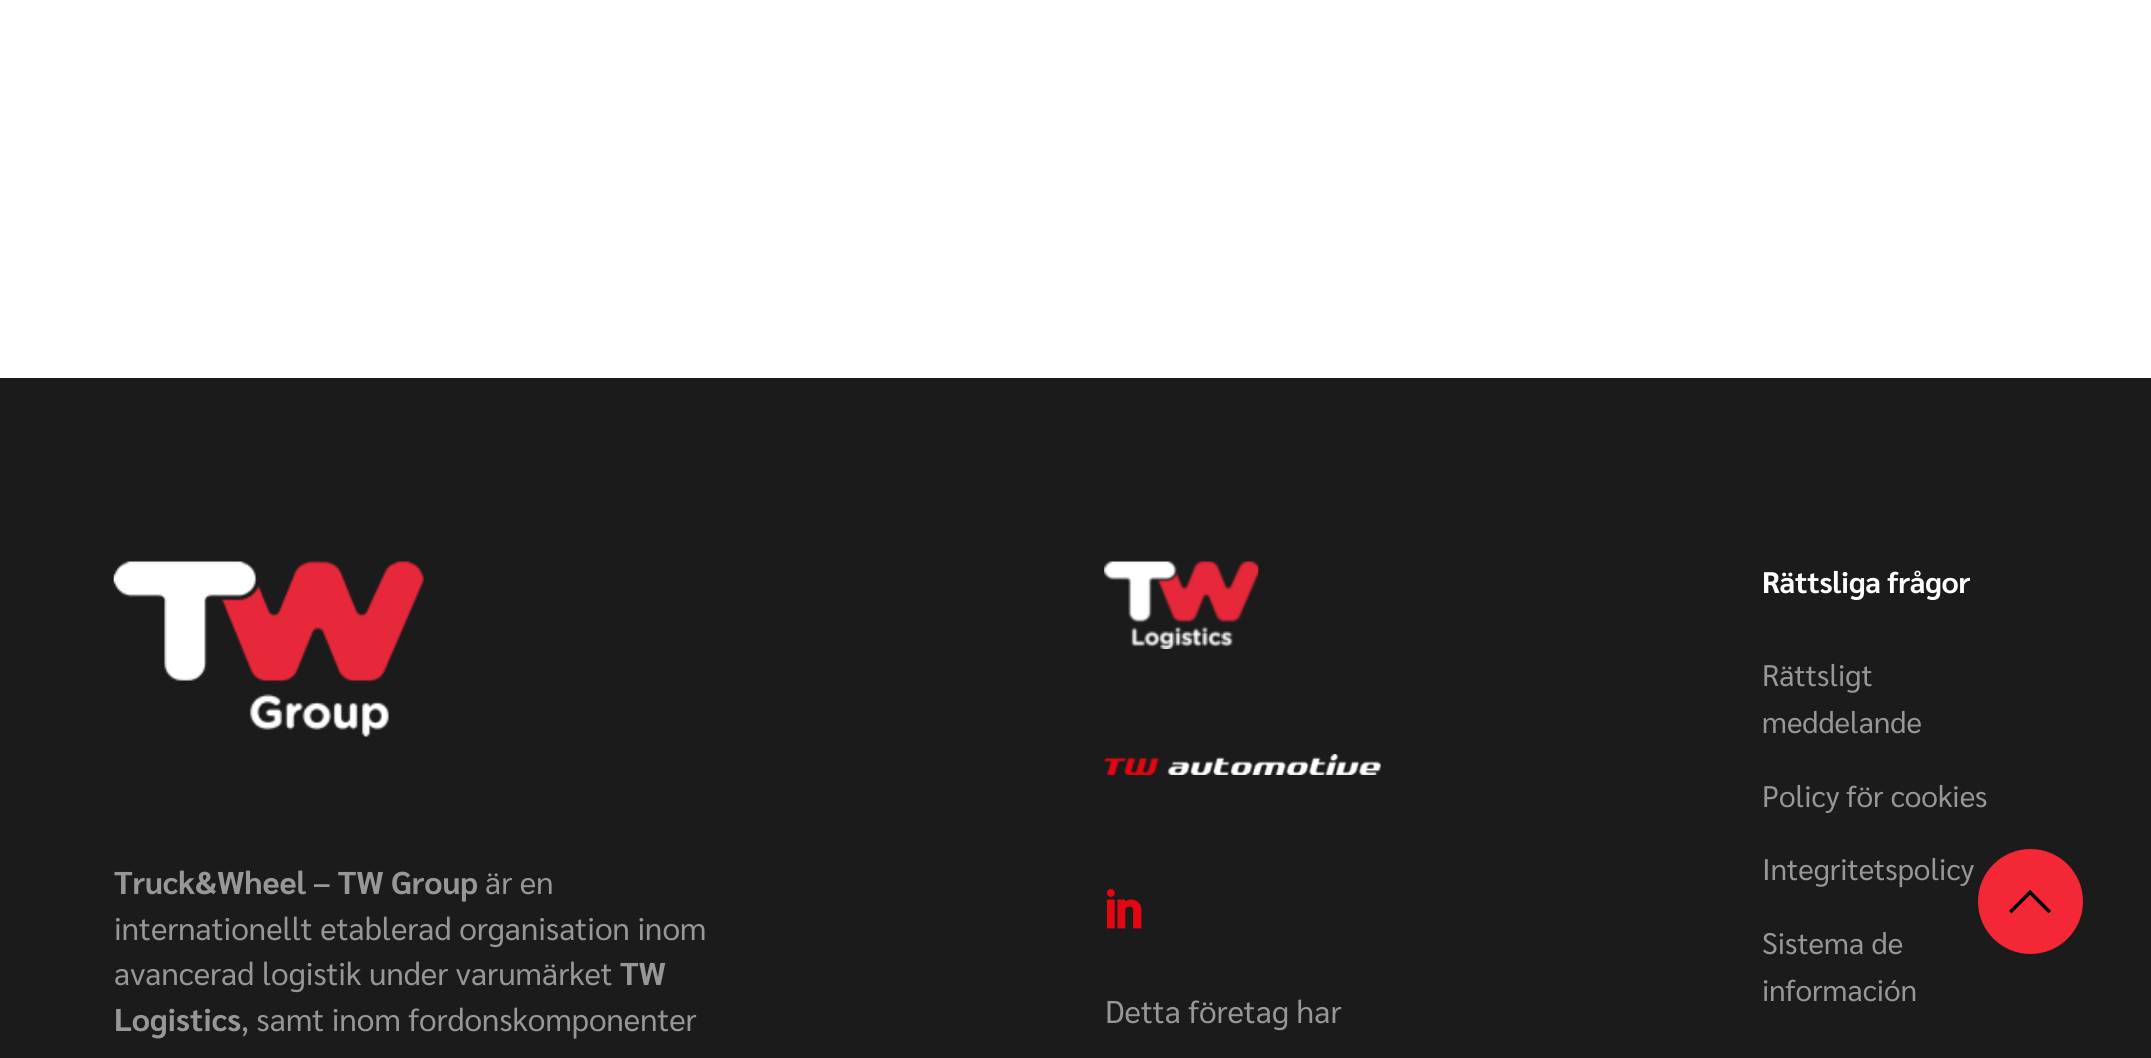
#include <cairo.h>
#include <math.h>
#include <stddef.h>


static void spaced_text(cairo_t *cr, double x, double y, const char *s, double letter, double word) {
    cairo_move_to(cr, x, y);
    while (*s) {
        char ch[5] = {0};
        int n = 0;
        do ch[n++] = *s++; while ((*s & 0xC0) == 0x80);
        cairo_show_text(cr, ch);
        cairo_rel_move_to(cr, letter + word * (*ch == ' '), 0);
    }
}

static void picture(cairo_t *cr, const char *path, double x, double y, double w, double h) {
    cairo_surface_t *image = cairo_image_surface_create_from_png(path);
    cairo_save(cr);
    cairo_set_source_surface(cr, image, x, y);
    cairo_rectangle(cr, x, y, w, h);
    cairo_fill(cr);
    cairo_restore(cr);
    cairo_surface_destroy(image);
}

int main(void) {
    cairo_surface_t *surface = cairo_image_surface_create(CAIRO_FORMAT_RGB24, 2151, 1058);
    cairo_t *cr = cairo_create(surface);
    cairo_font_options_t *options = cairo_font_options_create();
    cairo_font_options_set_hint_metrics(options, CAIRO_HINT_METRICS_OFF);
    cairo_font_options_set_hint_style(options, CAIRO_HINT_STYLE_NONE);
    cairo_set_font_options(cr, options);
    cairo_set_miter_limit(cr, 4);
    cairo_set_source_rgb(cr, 1, 1, 1);
    cairo_paint(cr);
    cairo_set_source_rgb(cr, 0.106, 0.106, 0.106);
    cairo_rectangle(cr, 0, 378, 2151, 680);
    cairo_fill(cr);
    picture(cr, "img1.png", 113, 561, 311, 176);
    cairo_select_font_face(cr, "Sarabun", CAIRO_FONT_SLANT_NORMAL, CAIRO_FONT_WEIGHT_BOLD);
    cairo_set_font_size(cr, 31.5);
    cairo_set_source_rgb(cr, 0.592, 0.592, 0.592);
    cairo_move_to(cr, 114, 894);
    cairo_show_text(cr, "Truck&Wheel – TW Group");
    cairo_select_font_face(cr, "Sarabun", CAIRO_FONT_SLANT_NORMAL, CAIRO_FONT_WEIGHT_NORMAL);
    cairo_move_to(cr, 485, 894);
    cairo_show_text(cr, "är en");
    cairo_move_to(cr, 114, 940);
    cairo_show_text(cr, "internationellt etablerad organisation inom");
    cairo_move_to(cr, 114, 985);
    cairo_show_text(cr, "avancerad logistik under varumärket");
    cairo_select_font_face(cr, "Sarabun", CAIRO_FONT_SLANT_NORMAL, CAIRO_FONT_WEIGHT_BOLD);
    cairo_move_to(cr, 620, 985);
    cairo_show_text(cr, "TW");
    cairo_move_to(cr, 114, 1031);
    cairo_show_text(cr, "Logistics");
    cairo_select_font_face(cr, "Sarabun", CAIRO_FONT_SLANT_NORMAL, CAIRO_FONT_WEIGHT_NORMAL);
    cairo_move_to(cr, 241, 1031);
    cairo_show_text(cr, ", samt inom fordonskomponenter");
    picture(cr, "img2.png", 1104, 561, 155, 88);
    picture(cr, "img3.png", 1104, 754, 277, 21);
    picture(cr, "img4.png", 1106, 889, 36, 40);
    cairo_move_to(cr, 1105, 1023);
    cairo_show_text(cr, "Detta företag har");
    cairo_select_font_face(cr, "Sarabun", CAIRO_FONT_SLANT_NORMAL, CAIRO_FONT_WEIGHT_BOLD);
    cairo_set_font_size(cr, 29.75);
    cairo_set_source_rgb(cr, 1, 1, 1);
    spaced_text(cr, 1762, 593, "Rättsliga frågor", -0.25, 0);
    cairo_select_font_face(cr, "Sarabun", CAIRO_FONT_SLANT_NORMAL, CAIRO_FONT_WEIGHT_NORMAL);
    cairo_set_source_rgb(cr, 0.592, 0.592, 0.592);
    cairo_move_to(cr, 1762, 686);
    cairo_show_text(cr, "Rättsligt");
    cairo_move_to(cr, 1762, 733);
    cairo_show_text(cr, "meddelande");
    cairo_move_to(cr, 1762, 807);
    cairo_show_text(cr, "Policy för cookies");
    cairo_move_to(cr, 1762, 880);
    cairo_show_text(cr, "Integritetspolicy");
    cairo_move_to(cr, 1762, 954);
    cairo_show_text(cr, "Sistema de");
    cairo_move_to(cr, 1762, 1001);
    cairo_show_text(cr, "información");
    cairo_set_source_rgb(cr, 0.953, 0.153, 0.208);
    cairo_new_path(cr);
    cairo_arc(cr, 2030.5, 901.5, 51.5, 0, 2 * M_PI);
    cairo_fill_preserve(cr);
    cairo_stroke(cr);
    picture(cr, "img5.png", 2009, 889, 42, 25);
    cairo_surface_write_to_png(surface, "page.png");
    cairo_font_options_destroy(options);
    cairo_destroy(cr);
    cairo_surface_destroy(surface);
    return 0;
}
